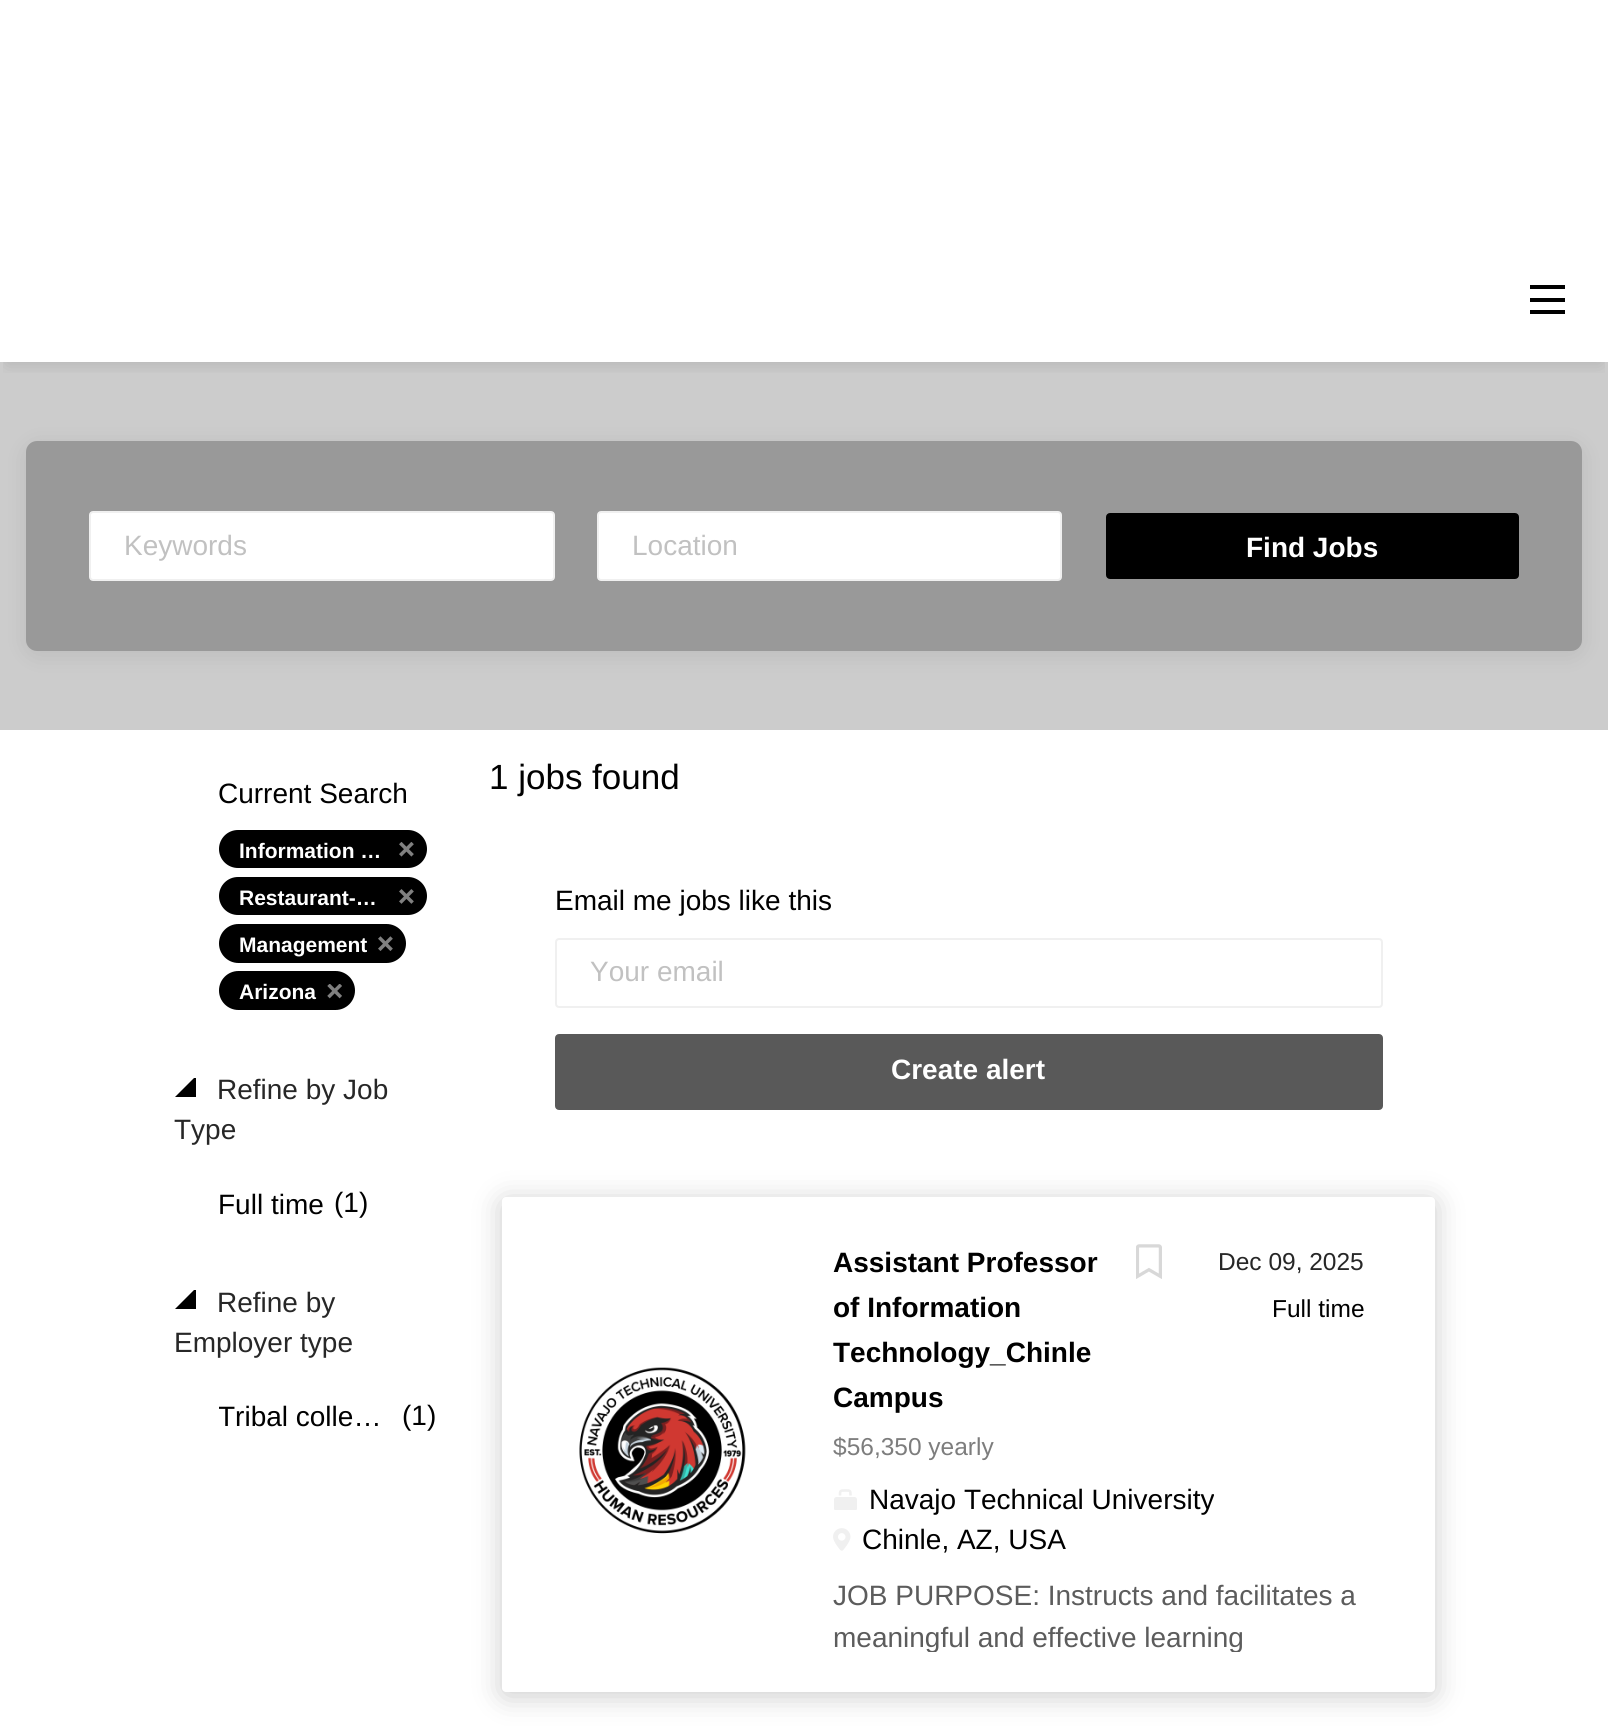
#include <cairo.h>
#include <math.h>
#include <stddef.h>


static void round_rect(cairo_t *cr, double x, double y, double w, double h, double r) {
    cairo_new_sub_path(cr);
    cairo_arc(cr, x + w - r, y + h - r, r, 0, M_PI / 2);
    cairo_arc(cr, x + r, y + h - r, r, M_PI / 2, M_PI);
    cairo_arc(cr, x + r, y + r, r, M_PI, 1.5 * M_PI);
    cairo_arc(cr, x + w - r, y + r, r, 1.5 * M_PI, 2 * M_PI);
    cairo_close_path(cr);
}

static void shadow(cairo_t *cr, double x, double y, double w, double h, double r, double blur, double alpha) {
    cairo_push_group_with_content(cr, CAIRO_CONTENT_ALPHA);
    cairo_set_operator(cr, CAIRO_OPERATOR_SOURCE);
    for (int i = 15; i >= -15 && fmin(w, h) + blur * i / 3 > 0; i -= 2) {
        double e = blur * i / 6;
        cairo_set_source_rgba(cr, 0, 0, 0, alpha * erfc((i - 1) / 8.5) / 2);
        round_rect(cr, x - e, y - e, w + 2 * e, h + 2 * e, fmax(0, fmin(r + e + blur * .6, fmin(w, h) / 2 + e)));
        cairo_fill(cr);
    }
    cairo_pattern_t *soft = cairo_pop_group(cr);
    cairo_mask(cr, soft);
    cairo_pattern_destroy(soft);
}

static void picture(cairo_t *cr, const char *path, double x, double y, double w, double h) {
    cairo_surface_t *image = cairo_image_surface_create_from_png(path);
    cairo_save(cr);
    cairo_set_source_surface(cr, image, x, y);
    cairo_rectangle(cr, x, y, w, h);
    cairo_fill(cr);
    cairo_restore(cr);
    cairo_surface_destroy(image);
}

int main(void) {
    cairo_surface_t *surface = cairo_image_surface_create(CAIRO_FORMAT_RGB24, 1608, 1726);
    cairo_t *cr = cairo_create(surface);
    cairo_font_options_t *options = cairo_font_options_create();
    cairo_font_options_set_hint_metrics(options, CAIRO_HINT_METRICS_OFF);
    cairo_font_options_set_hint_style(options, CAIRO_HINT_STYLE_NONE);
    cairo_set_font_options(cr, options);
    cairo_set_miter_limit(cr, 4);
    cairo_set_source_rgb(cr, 1, 1, 1);
    cairo_paint(cr);
    cairo_set_source_rgb(cr, 0.8, 0.8, 0.8);
    cairo_rectangle(cr, 0, 362, 1608, 368);
    cairo_fill(cr);
    cairo_save(cr);
    cairo_rectangle(cr, 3, 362, 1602, 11);
    cairo_clip(cr);
    cairo_set_source_rgb(cr, 0, 0, 0);
    shadow(cr, 7, 252, 1594, 112, 0, 9, 0.12);
    cairo_restore(cr);
    cairo_set_source_rgb(cr, 0, 0, 0);
    cairo_rectangle(cr, 1530, 298, 35, 4);
    cairo_fill(cr);
    cairo_rectangle(cr, 1530, 285, 35, 4);
    cairo_fill(cr);
    cairo_rectangle(cr, 1530, 310, 35, 4);
    cairo_fill(cr);
    cairo_set_source_rgb(cr, 0, 0, 0);
    shadow(cr, 26, 445, 1556, 210, 11, 12, 0.08);
    cairo_set_source_rgb(cr, 0.6, 0.6, 0.6);
    round_rect(cr, 26, 441, 1556, 210, 11);
    cairo_fill(cr);
    cairo_set_source_rgb(cr, 1, 1, 1);
    round_rect(cr, 90, 512, 464, 68, 3);
    cairo_fill_preserve(cr);
    cairo_set_source_rgb(cr, 0.941, 0.941, 0.941);
    cairo_stroke(cr);
    cairo_select_font_face(cr, "Liberation Sans", CAIRO_FONT_SLANT_NORMAL, CAIRO_FONT_WEIGHT_NORMAL);
    cairo_set_font_size(cr, 28);
    cairo_set_source_rgb(cr, 0.757, 0.757, 0.757);
    cairo_move_to(cr, 124, 555);
    cairo_show_text(cr, "Keywords");
    cairo_set_source_rgb(cr, 1, 1, 1);
    round_rect(cr, 598, 512, 463, 68, 3);
    cairo_fill_preserve(cr);
    cairo_set_source_rgb(cr, 0.941, 0.941, 0.941);
    cairo_stroke(cr);
    cairo_set_source_rgb(cr, 0.757, 0.757, 0.757);
    cairo_move_to(cr, 632, 555);
    cairo_show_text(cr, "Location");
    cairo_set_source_rgb(cr, 0, 0, 0);
    round_rect(cr, 1107, 514, 411, 64, 3);
    cairo_fill_preserve(cr);
    cairo_stroke(cr);
    cairo_select_font_face(cr, "Liberation Sans", CAIRO_FONT_SLANT_NORMAL, CAIRO_FONT_WEIGHT_BOLD);
    cairo_set_source_rgb(cr, 1, 1, 1);
    cairo_move_to(cr, 1246, 557);
    cairo_show_text(cr, "Find Jobs");
    cairo_select_font_face(cr, "Liberation Sans", CAIRO_FONT_SLANT_NORMAL, CAIRO_FONT_WEIGHT_NORMAL);
    cairo_set_source_rgb(cr, 0, 0, 0);
    cairo_move_to(cr, 218, 803);
    cairo_show_text(cr, "Current Search");
    round_rect(cr, 219, 830, 208, 38, 19);
    cairo_fill(cr);
    cairo_select_font_face(cr, "Liberation Sans", CAIRO_FONT_SLANT_NORMAL, CAIRO_FONT_WEIGHT_BOLD);
    cairo_set_font_size(cr, 21);
    cairo_set_source_rgb(cr, 1, 1, 1);
    cairo_move_to(cr, 239, 858);
    cairo_show_text(cr, "Information …");
    picture(cr, "img1.png", 399, 842, 15, 15);
    cairo_set_source_rgb(cr, 0, 0, 0);
    round_rect(cr, 219, 877, 208, 38, 19);
    cairo_fill(cr);
    cairo_set_source_rgb(cr, 1, 1, 1);
    cairo_move_to(cr, 239, 905);
    cairo_show_text(cr, "Restaurant-…");
    picture(cr, "img2.png", 399, 889, 15, 15);
    cairo_set_source_rgb(cr, 0, 0, 0);
    round_rect(cr, 219, 924, 187, 39, 19.5);
    cairo_fill(cr);
    cairo_set_source_rgb(cr, 1, 1, 1);
    cairo_move_to(cr, 239, 952);
    cairo_show_text(cr, "Management");
    picture(cr, "img3.png", 378, 936, 15, 15);
    cairo_set_source_rgb(cr, 0, 0, 0);
    round_rect(cr, 219, 971, 136, 39, 19.5);
    cairo_fill(cr);
    cairo_set_source_rgb(cr, 1, 1, 1);
    cairo_move_to(cr, 239, 999);
    cairo_show_text(cr, "Arizona");
    picture(cr, "img4.png", 327, 984, 15, 15);
    cairo_set_source_rgb(cr, 0, 0, 0);
    cairo_new_path(cr);
    cairo_move_to(cr, 196, 1097);
    cairo_line_to(cr, 175, 1097);
    cairo_line_to(cr, 194, 1078);
    cairo_line_to(cr, 196, 1078);
    cairo_close_path(cr);
    cairo_fill(cr);
    cairo_select_font_face(cr, "Liberation Sans", CAIRO_FONT_SLANT_NORMAL, CAIRO_FONT_WEIGHT_NORMAL);
    cairo_set_font_size(cr, 28);
    cairo_set_source_rgb(cr, 0.153, 0.153, 0.153);
    cairo_move_to(cr, 217, 1099);
    cairo_show_text(cr, "Refine by Job");
    cairo_move_to(cr, 174, 1139);
    cairo_show_text(cr, "Type");
    cairo_set_source_rgb(cr, 0, 0, 0);
    cairo_move_to(cr, 218, 1214);
    cairo_show_text(cr, "Full time");
    cairo_move_to(cr, 334, 1212);
    cairo_show_text(cr, "(1)");
    cairo_new_path(cr);
    cairo_move_to(cr, 196, 1309);
    cairo_line_to(cr, 175, 1309);
    cairo_line_to(cr, 194, 1290);
    cairo_line_to(cr, 196, 1290);
    cairo_close_path(cr);
    cairo_fill(cr);
    cairo_set_source_rgb(cr, 0.153, 0.153, 0.153);
    cairo_move_to(cr, 217, 1312);
    cairo_show_text(cr, "Refine by");
    cairo_move_to(cr, 174, 1352);
    cairo_show_text(cr, "Employer type");
    cairo_save(cr);
    cairo_rectangle(cr, 219, 1383, 173, 70);
    cairo_clip(cr);
    cairo_set_source_rgb(cr, 0, 0, 0);
    cairo_move_to(cr, 218, 1426);
    cairo_show_text(cr, "Tribal colle…");
    cairo_restore(cr);
    cairo_set_source_rgb(cr, 0, 0, 0);
    cairo_move_to(cr, 402, 1425);
    cairo_show_text(cr, "(1)");
    cairo_set_font_size(cr, 35);
    cairo_move_to(cr, 489, 789);
    cairo_show_text(cr, "1 jobs found");
    cairo_set_font_size(cr, 28);
    cairo_move_to(cr, 555, 910);
    cairo_show_text(cr, "Email me jobs like this");
    round_rect(cr, 556, 939, 826, 68, 3);
    cairo_set_source_rgb(cr, 0.941, 0.941, 0.941);
    cairo_stroke(cr);
    cairo_set_source_rgb(cr, 0.757, 0.757, 0.757);
    cairo_move_to(cr, 590, 981);
    cairo_show_text(cr, "Your email");
    cairo_set_source_rgb(cr, 0.349, 0.349, 0.349);
    round_rect(cr, 556, 1035, 826, 74, 3);
    cairo_fill_preserve(cr);
    cairo_stroke(cr);
    cairo_select_font_face(cr, "Liberation Sans", CAIRO_FONT_SLANT_NORMAL, CAIRO_FONT_WEIGHT_BOLD);
    cairo_set_source_rgb(cr, 1, 1, 1);
    cairo_move_to(cr, 891, 1079);
    cairo_show_text(cr, "Create alert");
    cairo_set_source_rgb(cr, 0.8, 0.8, 0.8);
    shadow(cr, 502, 1201, 933, 495, 4, 14, 1);
    cairo_set_source_rgb(cr, 1, 1, 1);
    round_rect(cr, 502, 1197, 933, 495, 4);
    cairo_fill(cr);
    picture(cr, "img5.png", 579, 1367, 167, 167);
    cairo_set_source_rgb(cr, 0, 0, 0);
    cairo_move_to(cr, 833, 1272);
    cairo_show_text(cr, "Assistant Professor");
    cairo_move_to(cr, 833, 1317);
    cairo_show_text(cr, "of Information");
    cairo_move_to(cr, 833, 1362);
    cairo_show_text(cr, "Technology_Chinle");
    cairo_move_to(cr, 833, 1407);
    cairo_show_text(cr, "Campus");
    picture(cr, "img6.png", 1136, 1244, 26, 35);
    cairo_select_font_face(cr, "Liberation Sans", CAIRO_FONT_SLANT_NORMAL, CAIRO_FONT_WEIGHT_NORMAL);
    cairo_set_font_size(cr, 24.5);
    cairo_set_source_rgb(cr, 0.153, 0.153, 0.153);
    cairo_move_to(cr, 1218, 1270);
    cairo_show_text(cr, "Dec 09, 2025");
    cairo_set_source_rgb(cr, 0, 0, 0);
    cairo_move_to(cr, 1272, 1317);
    cairo_show_text(cr, "Full time");
    cairo_set_source_rgb(cr, 0.49, 0.49, 0.49);
    cairo_move_to(cr, 833, 1455);
    cairo_show_text(cr, "$56,350 yearly");
    cairo_save(cr);
    cairo_rectangle(cr, 833, 1489, 25, 21);
    cairo_clip(cr);
    cairo_set_source_rgb(cr, 0.941, 0.941, 0.941);
    round_rect(cr, 834, 1497, 23, 14, 2.5);
    cairo_fill(cr);
    cairo_restore(cr);
    cairo_new_path(cr);
    cairo_move_to(cr, 840, 1495.5);
    cairo_curve_to(cr, 840, 1490.5, 840, 1490.5, 845.5, 1490.5);
    cairo_curve_to(cr, 850.5, 1490.5, 850.5, 1490.5, 850.5, 1495.5);
    cairo_set_source_rgb(cr, 0.941, 0.941, 0.941);
    cairo_set_line_width(cr, 2.6);
    cairo_stroke(cr);
    cairo_set_font_size(cr, 28);
    cairo_set_source_rgb(cr, 0, 0, 0);
    cairo_move_to(cr, 869, 1509);
    cairo_show_text(cr, "Navajo Technical University");
    picture(cr, "img7.png", 833, 1528, 18, 23);
    cairo_move_to(cr, 862, 1549);
    cairo_show_text(cr, "Chinle, AZ, USA");
    cairo_set_source_rgb(cr, 0.361, 0.361, 0.361);
    cairo_move_to(cr, 833, 1605);
    cairo_show_text(cr, "JOB PURPOSE: Instructs and facilitates a");
    cairo_save(cr);
    cairo_rectangle(cr, 833, 1575, 569, 77);
    cairo_clip(cr);
    cairo_move_to(cr, 833, 1647);
    cairo_show_text(cr, "meaningful and effective learning");
    cairo_restore(cr);
    cairo_surface_write_to_png(surface, "page.png");
    cairo_font_options_destroy(options);
    cairo_destroy(cr);
    cairo_surface_destroy(surface);
    return 0;
}
